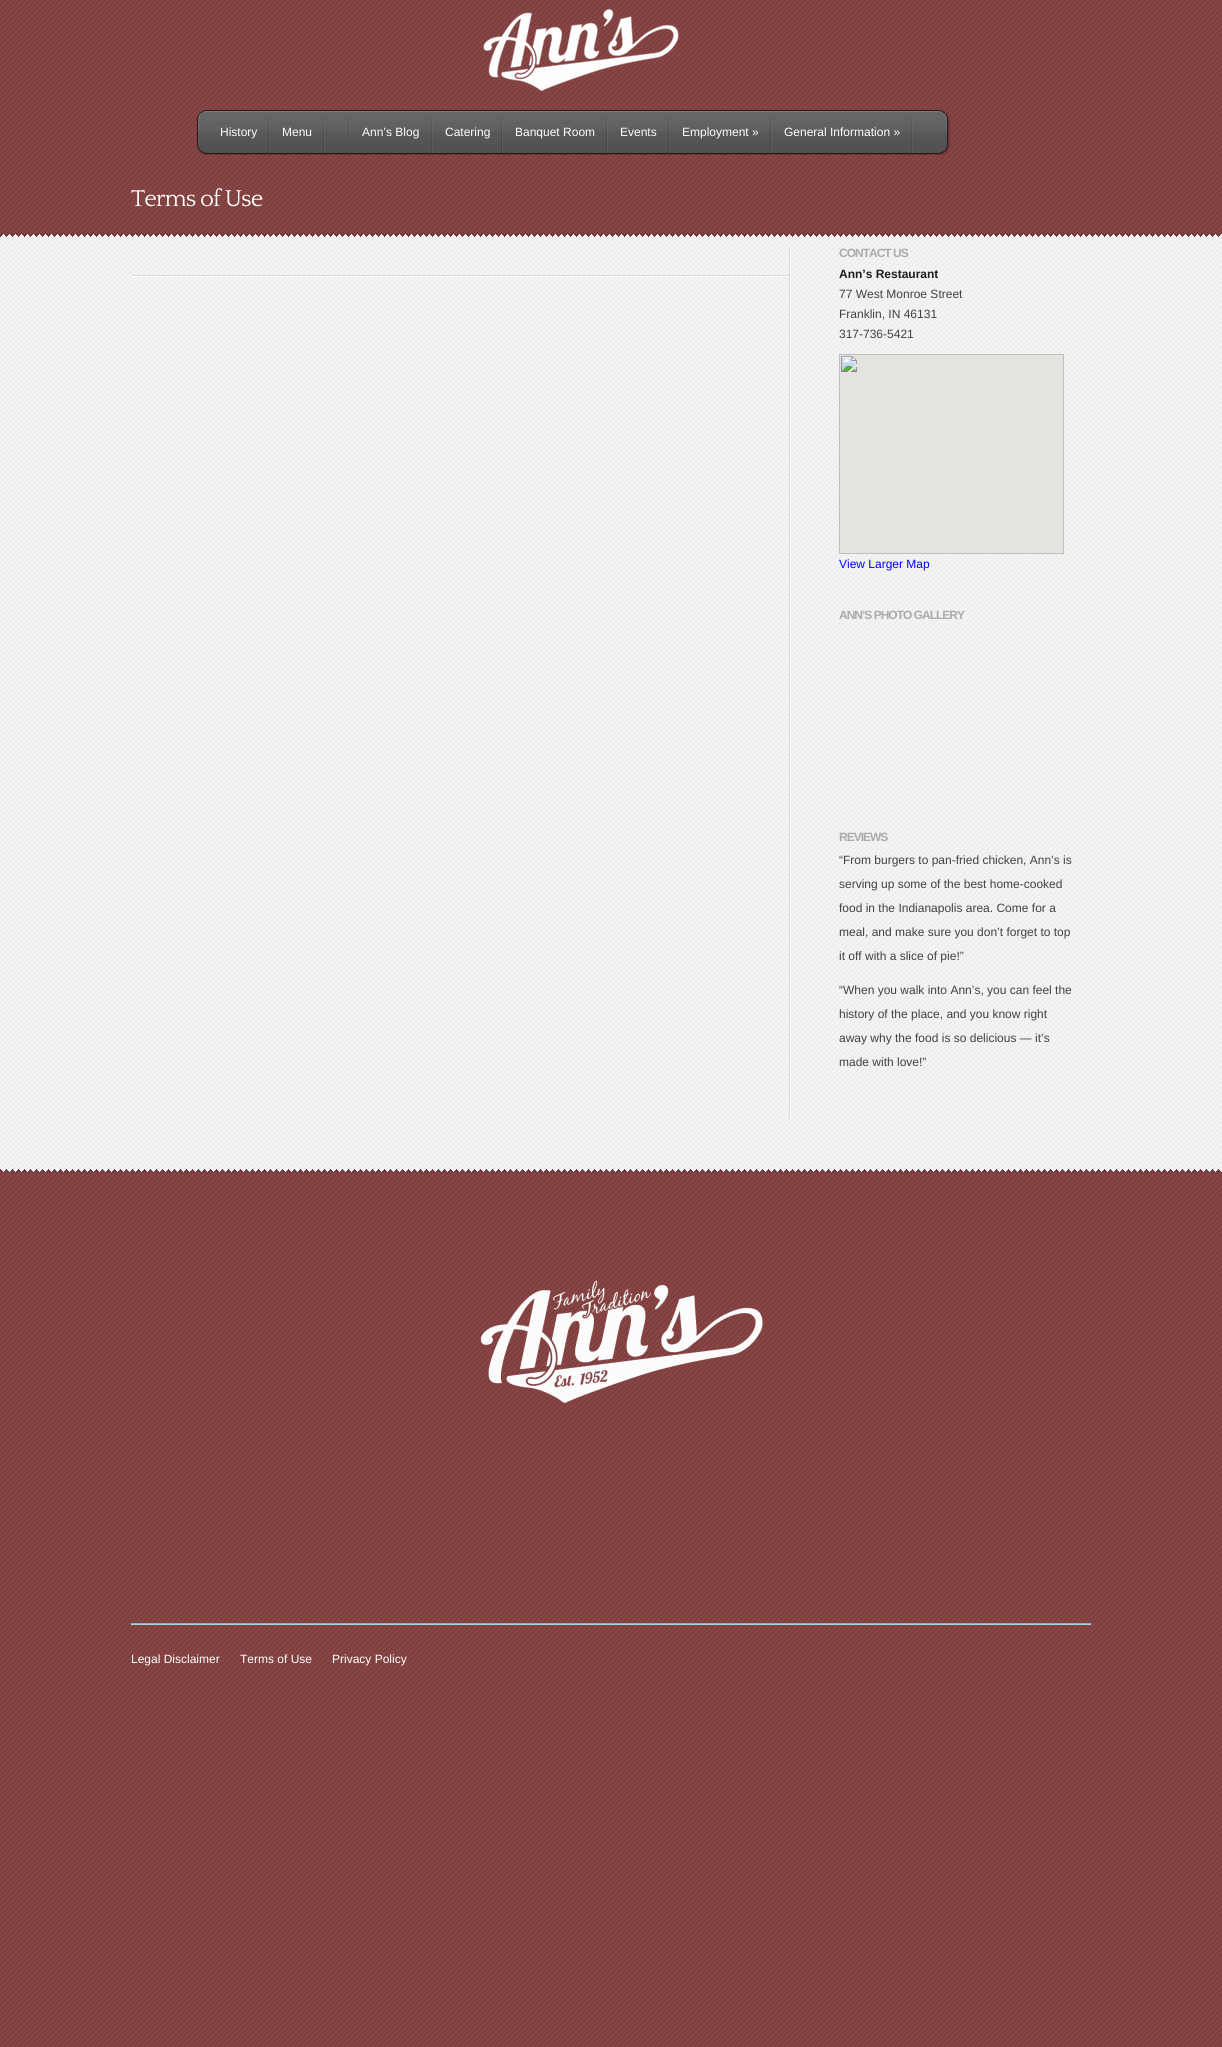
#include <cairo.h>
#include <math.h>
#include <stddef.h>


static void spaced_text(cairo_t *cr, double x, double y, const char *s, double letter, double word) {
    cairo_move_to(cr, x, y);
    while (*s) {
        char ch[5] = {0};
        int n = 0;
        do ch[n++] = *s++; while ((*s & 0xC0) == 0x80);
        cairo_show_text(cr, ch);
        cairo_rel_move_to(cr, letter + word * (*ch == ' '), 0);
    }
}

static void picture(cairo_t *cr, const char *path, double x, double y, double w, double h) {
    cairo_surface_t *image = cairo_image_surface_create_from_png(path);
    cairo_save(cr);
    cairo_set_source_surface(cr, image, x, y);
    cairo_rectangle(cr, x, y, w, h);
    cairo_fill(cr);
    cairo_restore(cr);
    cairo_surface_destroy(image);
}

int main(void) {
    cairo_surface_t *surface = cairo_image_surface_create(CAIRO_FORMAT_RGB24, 1222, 2047);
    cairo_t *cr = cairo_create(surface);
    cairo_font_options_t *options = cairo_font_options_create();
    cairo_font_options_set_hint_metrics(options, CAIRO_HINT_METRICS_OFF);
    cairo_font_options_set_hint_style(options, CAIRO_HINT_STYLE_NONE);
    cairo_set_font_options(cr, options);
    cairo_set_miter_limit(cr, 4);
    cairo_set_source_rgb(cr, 0.514, 0.239, 0.235);
    cairo_paint(cr);
    picture(cr, "img1.png", 0, 0, 1222, 2047);
    picture(cr, "img2.png", 0, 232, 1222, 5);
    picture(cr, "img3.png", 483, 9, 196, 82);
    picture(cr, "img4.png", 196, 109, 12, 46);
    picture(cr, "img5.png", 937, 109, 14, 46);
    picture(cr, "img6.png", 208, 109, 729, 46);
    picture(cr, "img7.png", 268, 115, 2, 38);
    cairo_select_font_face(cr, "Liberation Sans", CAIRO_FONT_SLANT_NORMAL, CAIRO_FONT_WEIGHT_NORMAL);
    cairo_set_font_size(cr, 12);
    cairo_set_source_rgb(cr, 1, 1, 1);
    cairo_move_to(cr, 220, 136);
    cairo_show_text(cr, "History");
    picture(cr, "img7.png", 323, 115, 2, 38);
    cairo_move_to(cr, 282, 136);
    cairo_show_text(cr, "Menu");
    picture(cr, "img8.png", 348, 115, 2, 20);
    picture(cr, "img7.png", 431, 115, 2, 38);
    cairo_move_to(cr, 362, 136);
    cairo_show_text(cr, "Ann’s Blog");
    picture(cr, "img7.png", 501, 115, 2, 38);
    cairo_move_to(cr, 445, 136);
    cairo_show_text(cr, "Catering");
    picture(cr, "img7.png", 606, 115, 2, 38);
    cairo_move_to(cr, 515, 136);
    cairo_show_text(cr, "Banquet Room");
    picture(cr, "img7.png", 668, 115, 2, 38);
    cairo_move_to(cr, 620, 136);
    cairo_show_text(cr, "Events");
    picture(cr, "img7.png", 770, 115, 2, 38);
    cairo_move_to(cr, 682, 136);
    cairo_show_text(cr, "Employment »");
    picture(cr, "img7.png", 911, 115, 2, 38);
    cairo_move_to(cr, 784, 136);
    cairo_show_text(cr, "General Information »");
    cairo_select_font_face(cr, "Quattrocento", CAIRO_FONT_SLANT_NORMAL, CAIRO_FONT_WEIGHT_NORMAL);
    cairo_set_font_size(cr, 24);
    spaced_text(cr, 131, 206, "Terms of Use", -1, 0);
    picture(cr, "img9.png", 0, 237, 1222, 932);
    picture(cr, "img10.png", 789, 247, 2, 872);
    picture(cr, "img11.png", 131, 275, 658, 2);
    cairo_select_font_face(cr, "Liberation Sans", CAIRO_FONT_SLANT_NORMAL, CAIRO_FONT_WEIGHT_BOLD);
    cairo_set_font_size(cr, 12);
    cairo_set_source_rgb(cr, 0.671, 0.671, 0.671);
    spaced_text(cr, 839, 257, "CONTACT US", -1, 0);
    cairo_set_source_rgb(cr, 0.11, 0.11, 0.11);
    cairo_move_to(cr, 839, 278);
    cairo_show_text(cr, "Ann’s Restaurant");
    cairo_select_font_face(cr, "Liberation Sans", CAIRO_FONT_SLANT_NORMAL, CAIRO_FONT_WEIGHT_NORMAL);
    cairo_set_source_rgb(cr, 0.255, 0.255, 0.255);
    cairo_move_to(cr, 839, 298);
    cairo_show_text(cr, "77 West Monroe Street");
    cairo_move_to(cr, 839, 318);
    cairo_show_text(cr, "Franklin, IN 46131");
    cairo_move_to(cr, 839, 338);
    cairo_show_text(cr, "317-736-5421");
    picture(cr, "img12.png", 839, 354, 225, 200);
    cairo_set_source_rgb(cr, 0, 0, 1);
    cairo_move_to(cr, 839, 568);
    cairo_show_text(cr, "View Larger Map");
    cairo_select_font_face(cr, "Liberation Sans", CAIRO_FONT_SLANT_NORMAL, CAIRO_FONT_WEIGHT_BOLD);
    cairo_set_source_rgb(cr, 0.671, 0.671, 0.671);
    spaced_text(cr, 839, 619, "ANN’S PHOTO GALLERY", -1, 0);
    spaced_text(cr, 839, 841, "REVIEWS", -1, 0);
    cairo_select_font_face(cr, "Liberation Sans", CAIRO_FONT_SLANT_NORMAL, CAIRO_FONT_WEIGHT_NORMAL);
    cairo_set_source_rgb(cr, 0.255, 0.255, 0.255);
    cairo_move_to(cr, 839, 864);
    cairo_show_text(cr, "“From burgers to pan-fried chicken, Ann’s is");
    cairo_move_to(cr, 839, 888);
    cairo_show_text(cr, "serving up some of the best home-cooked");
    cairo_move_to(cr, 839, 912);
    cairo_show_text(cr, "food in the Indianapolis area. Come for a");
    cairo_move_to(cr, 839, 936);
    cairo_show_text(cr, "meal, and make sure you don’t forget to top");
    cairo_move_to(cr, 839, 960);
    cairo_show_text(cr, "it off with a slice of pie!”");
    cairo_move_to(cr, 839, 994);
    cairo_show_text(cr, "“When you walk into Ann’s, you can feel the");
    cairo_move_to(cr, 839, 1018);
    cairo_show_text(cr, "history of the place, and you know right");
    cairo_move_to(cr, 839, 1042);
    cairo_show_text(cr, "away why the food is so delicious — it’s");
    cairo_move_to(cr, 839, 1066);
    cairo_show_text(cr, "made with love!”");
    picture(cr, "img13.png", 0, 1169, 1222, 5);
    picture(cr, "img14.png", 131, 1623, 960, 2);
    picture(cr, "img15.png", 480, 1280, 283, 123);
    cairo_set_source_rgb(cr, 1, 1, 1);
    cairo_move_to(cr, 131, 1663);
    cairo_show_text(cr, "Legal Disclaimer");
    cairo_move_to(cr, 240, 1663);
    cairo_show_text(cr, "Terms of Use");
    cairo_move_to(cr, 332, 1663);
    cairo_show_text(cr, "Privacy Policy");
    cairo_surface_write_to_png(surface, "page.png");
    cairo_font_options_destroy(options);
    cairo_destroy(cr);
    cairo_surface_destroy(surface);
    return 0;
}
